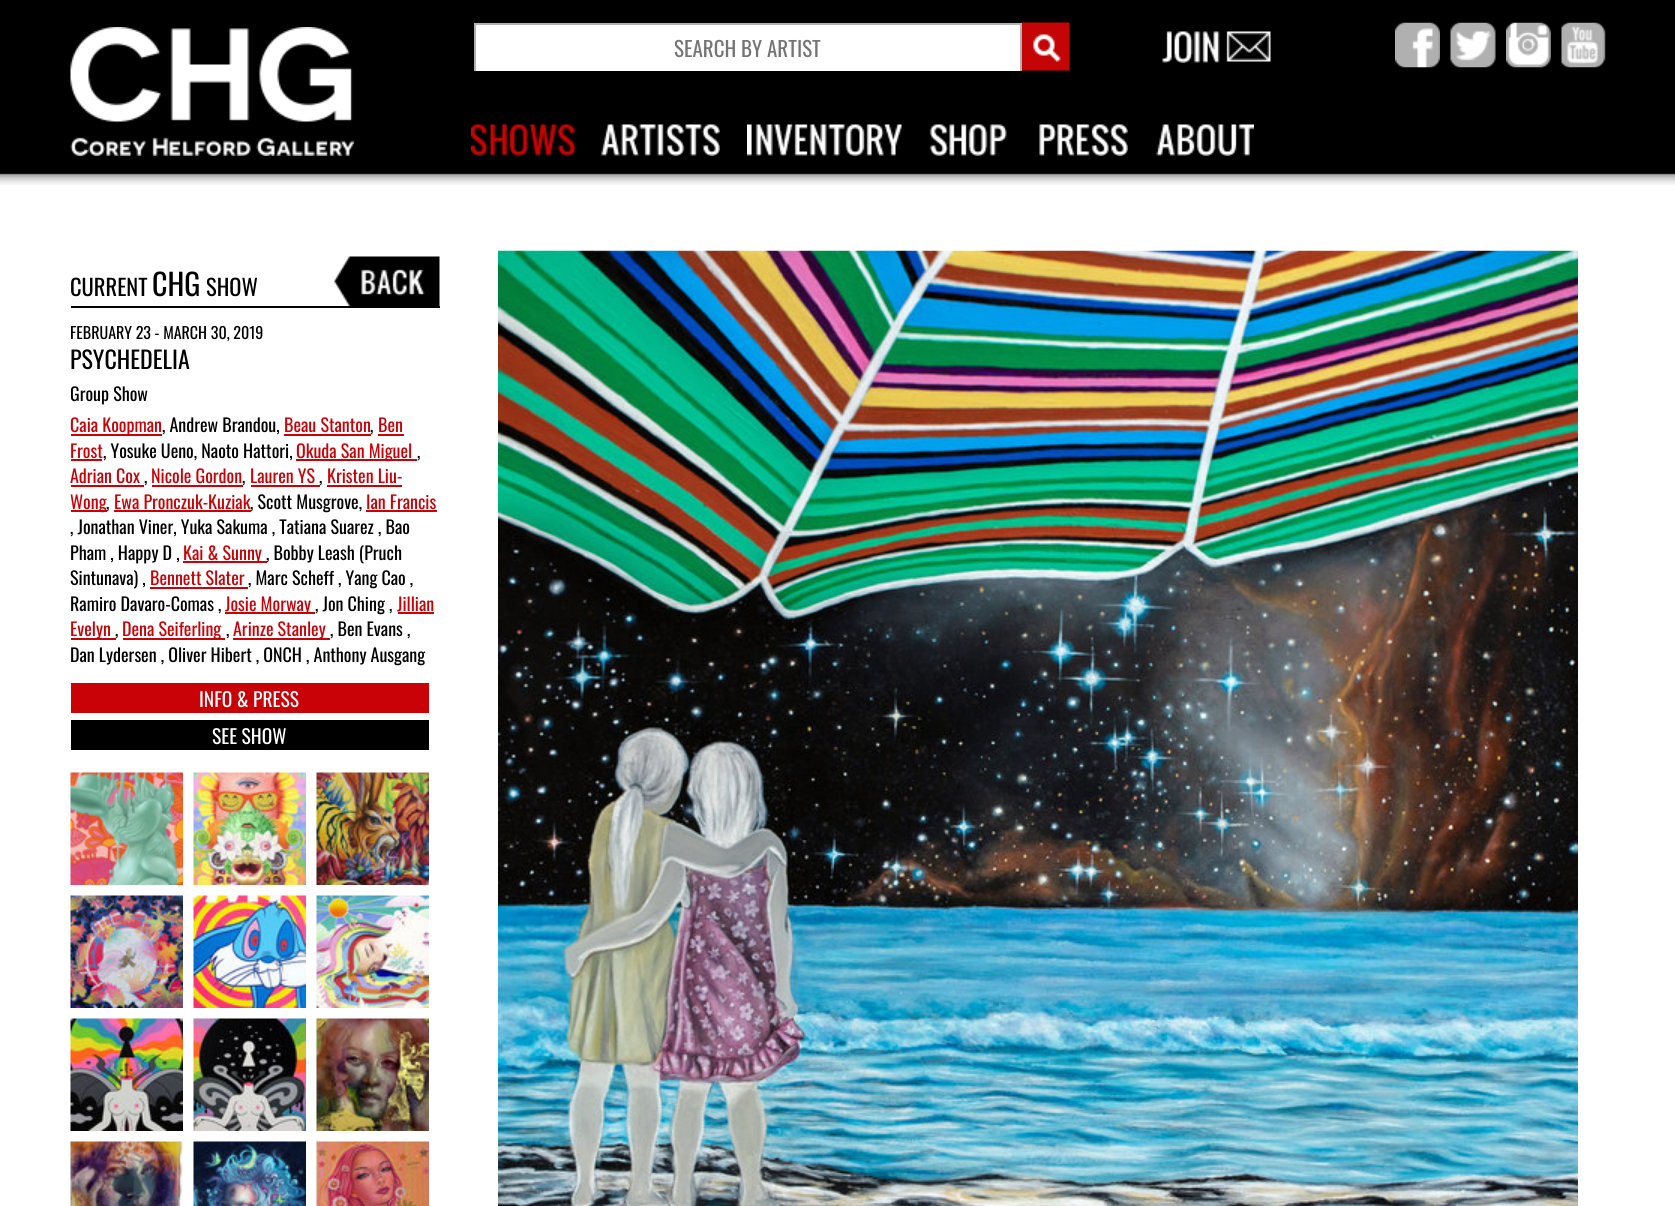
#include <cairo.h>
#include <math.h>
#include <stddef.h>


static void picture(cairo_t *cr, const char *path, double x, double y, double w, double h) {
    cairo_surface_t *image = cairo_image_surface_create_from_png(path);
    cairo_save(cr);
    cairo_set_source_surface(cr, image, x, y);
    cairo_rectangle(cr, x, y, w, h);
    cairo_fill(cr);
    cairo_restore(cr);
    cairo_surface_destroy(image);
}

int main(void) {
    cairo_surface_t *surface = cairo_image_surface_create(CAIRO_FORMAT_RGB24, 1675, 1206);
    cairo_t *cr = cairo_create(surface);
    cairo_font_options_t *options = cairo_font_options_create();
    cairo_font_options_set_hint_metrics(options, CAIRO_HINT_METRICS_OFF);
    cairo_font_options_set_hint_style(options, CAIRO_HINT_STYLE_NONE);
    cairo_set_font_options(cr, options);
    cairo_set_miter_limit(cr, 4);
    cairo_set_source_rgb(cr, 1, 1, 1);
    cairo_paint(cr);
    picture(cr, "img1.png", 0, 0, 1675, 185);
    picture(cr, "img2.png", 70, 27, 284, 129);
    cairo_set_source_rgb(cr, 1, 1, 1);
    cairo_rectangle(cr, 476, 25, 544, 46);
    cairo_fill(cr);
    picture(cr, "img3.png", 1021, 22, 49, 49);
    cairo_set_source_rgb(cr, 0.698, 0.698, 0.698);
    cairo_rectangle(cr, 474, 23, 548, 2);
    cairo_fill(cr);
    cairo_rectangle(cr, 1020, 23, 2, 48);
    cairo_fill(cr);
    cairo_rectangle(cr, 474, 23, 2, 48);
    cairo_fill(cr);
    cairo_select_font_face(cr, "Oswald", CAIRO_FONT_SLANT_NORMAL, CAIRO_FONT_WEIGHT_NORMAL);
    cairo_set_font_size(cr, 21);
    cairo_set_source_rgb(cr, 0.459, 0.459, 0.459);
    cairo_move_to(cr, 674, 57);
    cairo_show_text(cr, "SEARCH BY ARTIST");
    picture(cr, "img4.png", 1162, 31, 109, 32);
    picture(cr, "img5.png", 471, 124, 104, 32);
    picture(cr, "img6.png", 601, 124, 119, 32);
    picture(cr, "img7.png", 747, 124, 155, 32);
    picture(cr, "img8.png", 929, 124, 78, 32);
    picture(cr, "img9.png", 1039, 124, 89, 32);
    picture(cr, "img10.png", 1156, 124, 98, 32);
    picture(cr, "img11.png", 1395, 22, 45, 46);
    picture(cr, "img12.png", 1450, 22, 46, 46);
    picture(cr, "img13.png", 1506, 22, 45, 46);
    picture(cr, "img14.png", 1561, 22, 45, 46);
    cairo_set_source_rgb(cr, 0, 0, 0);
    cairo_rectangle(cr, 71, 306, 369, 2);
    cairo_fill(cr);
    cairo_set_font_size(cr, 22.5);
    cairo_move_to(cr, 70, 296);
    cairo_show_text(cr, "CURRENT");
    cairo_set_font_size(cr, 30);
    cairo_move_to(cr, 152, 296);
    cairo_show_text(cr, "CHG");
    cairo_set_font_size(cr, 22.5);
    cairo_move_to(cr, 206, 296);
    cairo_show_text(cr, "SHOW");
    picture(cr, "img15.png", 334, 256, 106, 50);
    cairo_save(cr);
    cairo_rectangle(cr, 71, 320, 369, 27);
    cairo_clip(cr);
    cairo_set_font_size(cr, 16);
    cairo_move_to(cr, 70, 339);
    cairo_show_text(cr, "FEBRUARY 23 - MARCH 30, 2019");
    cairo_restore(cr);
    cairo_set_font_size(cr, 24);
    cairo_move_to(cr, 70, 369);
    cairo_show_text(cr, "PSYCHEDELIA");
    cairo_save(cr);
    cairo_rectangle(cr, 71, 380, 369, 31);
    cairo_clip(cr);
    cairo_set_font_size(cr, 18);
    cairo_move_to(cr, 70, 401);
    cairo_show_text(cr, "Group Show");
    cairo_restore(cr);
    cairo_set_source_rgb(cr, 0.788, 0.008, 0.031);
    cairo_rectangle(cr, 71, 434, 91, 2);
    cairo_fill(cr);
    cairo_set_font_size(cr, 18);
    cairo_move_to(cr, 70, 432);
    cairo_show_text(cr, "Caia Koopman");
    cairo_set_source_rgb(cr, 0, 0, 0);
    cairo_move_to(cr, 162, 432);
    cairo_show_text(cr, ", Andrew Brandou,");
    cairo_set_source_rgb(cr, 0.788, 0.008, 0.031);
    cairo_move_to(cr, 284, 432);
    cairo_show_text(cr, "Beau Stanton");
    cairo_rectangle(cr, 284, 434, 87, 2);
    cairo_fill(cr);
    cairo_set_source_rgb(cr, 0, 0, 0);
    cairo_move_to(cr, 370, 432);
    cairo_show_text(cr, ",");
    cairo_set_source_rgb(cr, 0.788, 0.008, 0.031);
    cairo_move_to(cr, 378, 432);
    cairo_show_text(cr, "Ben");
    cairo_rectangle(cr, 378, 434, 26, 2);
    cairo_fill(cr);
    cairo_move_to(cr, 70, 458);
    cairo_show_text(cr, "Frost");
    cairo_rectangle(cr, 71, 459, 31, 2);
    cairo_fill(cr);
    cairo_set_source_rgb(cr, 0, 0, 0);
    cairo_move_to(cr, 103, 458);
    cairo_show_text(cr, ", Yosuke Ueno, Naoto Hattori,");
    cairo_set_source_rgb(cr, 0.788, 0.008, 0.031);
    cairo_rectangle(cr, 296, 459, 121, 2);
    cairo_fill(cr);
    cairo_move_to(cr, 296, 458);
    cairo_show_text(cr, "Okuda San Miguel");
    cairo_set_source_rgb(cr, 0, 0, 0);
    cairo_move_to(cr, 417, 458);
    cairo_show_text(cr, ",");
    cairo_set_source_rgb(cr, 0.788, 0.008, 0.031);
    cairo_move_to(cr, 70, 483);
    cairo_show_text(cr, "Adrian Cox");
    cairo_rectangle(cr, 71, 485, 73, 2);
    cairo_fill(cr);
    cairo_set_source_rgb(cr, 0, 0, 0);
    cairo_move_to(cr, 144, 483);
    cairo_show_text(cr, ",");
    cairo_set_source_rgb(cr, 0.788, 0.008, 0.031);
    cairo_move_to(cr, 151, 483);
    cairo_show_text(cr, "Nicole Gordon");
    cairo_rectangle(cr, 152, 485, 91, 2);
    cairo_fill(cr);
    cairo_set_source_rgb(cr, 0, 0, 0);
    cairo_move_to(cr, 242, 483);
    cairo_show_text(cr, ",");
    cairo_set_source_rgb(cr, 0.788, 0.008, 0.031);
    cairo_move_to(cr, 250, 483);
    cairo_show_text(cr, "Lauren YS");
    cairo_rectangle(cr, 251, 485, 69, 2);
    cairo_fill(cr);
    cairo_set_source_rgb(cr, 0, 0, 0);
    cairo_move_to(cr, 319, 483);
    cairo_show_text(cr, ",");
    cairo_set_source_rgb(cr, 0.788, 0.008, 0.031);
    cairo_move_to(cr, 327, 483);
    cairo_show_text(cr, "Kristen Liu-");
    cairo_rectangle(cr, 327, 485, 75, 2);
    cairo_fill(cr);
    cairo_rectangle(cr, 71, 510, 36, 2);
    cairo_fill(cr);
    cairo_move_to(cr, 70, 509);
    cairo_show_text(cr, "Wong");
    cairo_set_source_rgb(cr, 0, 0, 0);
    cairo_move_to(cr, 106, 509);
    cairo_show_text(cr, ",");
    cairo_set_source_rgb(cr, 0.788, 0.008, 0.031);
    cairo_move_to(cr, 114, 509);
    cairo_show_text(cr, "Ewa Pronczuk-Kuziak");
    cairo_rectangle(cr, 114, 510, 137, 2);
    cairo_fill(cr);
    cairo_set_source_rgb(cr, 0, 0, 0);
    cairo_move_to(cr, 250, 509);
    cairo_show_text(cr, ", Scott Musgrove,");
    cairo_set_source_rgb(cr, 0.788, 0.008, 0.031);
    cairo_move_to(cr, 366, 509);
    cairo_show_text(cr, "Ian Francis");
    cairo_rectangle(cr, 366, 510, 71, 2);
    cairo_fill(cr);
    cairo_set_source_rgb(cr, 0, 0, 0);
    cairo_move_to(cr, 70, 534);
    cairo_show_text(cr, ", Jonathan Viner, Yuka Sakuma , Tatiana Suarez , Bao");
    cairo_move_to(cr, 70, 560);
    cairo_show_text(cr, "Pham , Happy D ,");
    cairo_set_source_rgb(cr, 0.788, 0.008, 0.031);
    cairo_rectangle(cr, 183, 561, 84, 2);
    cairo_fill(cr);
    cairo_move_to(cr, 183, 560);
    cairo_show_text(cr, "Kai & Sunny");
    cairo_set_source_rgb(cr, 0, 0, 0);
    cairo_move_to(cr, 266, 560);
    cairo_show_text(cr, ", Bobby Leash (Pruch");
    cairo_move_to(cr, 70, 585);
    cairo_show_text(cr, "Sintunava) ,");
    cairo_set_source_rgb(cr, 0.788, 0.008, 0.031);
    cairo_move_to(cr, 150, 585);
    cairo_show_text(cr, "Bennett Slater");
    cairo_rectangle(cr, 150, 587, 98, 2);
    cairo_fill(cr);
    cairo_set_source_rgb(cr, 0, 0, 0);
    cairo_move_to(cr, 248, 585);
    cairo_show_text(cr, ", Marc Scheff , Yang Cao ,");
    cairo_move_to(cr, 70, 611);
    cairo_show_text(cr, "Ramiro Davaro-Comas ,");
    cairo_set_source_rgb(cr, 0.788, 0.008, 0.031);
    cairo_rectangle(cr, 225, 612, 90, 2);
    cairo_fill(cr);
    cairo_move_to(cr, 225, 611);
    cairo_show_text(cr, "Josie Morway");
    cairo_set_source_rgb(cr, 0, 0, 0);
    cairo_move_to(cr, 315, 611);
    cairo_show_text(cr, ", Jon Ching ,");
    cairo_set_source_rgb(cr, 0.788, 0.008, 0.031);
    cairo_move_to(cr, 397, 611);
    cairo_show_text(cr, "Jillian");
    cairo_rectangle(cr, 398, 612, 36, 2);
    cairo_fill(cr);
    cairo_rectangle(cr, 71, 638, 45, 2);
    cairo_fill(cr);
    cairo_move_to(cr, 70, 636);
    cairo_show_text(cr, "Evelyn");
    cairo_set_source_rgb(cr, 0, 0, 0);
    cairo_move_to(cr, 115, 636);
    cairo_show_text(cr, ",");
    cairo_set_source_rgb(cr, 0.788, 0.008, 0.031);
    cairo_rectangle(cr, 123, 638, 102, 2);
    cairo_fill(cr);
    cairo_move_to(cr, 122, 636);
    cairo_show_text(cr, "Dena Seiferling");
    cairo_set_source_rgb(cr, 0, 0, 0);
    cairo_move_to(cr, 226, 636);
    cairo_show_text(cr, ",");
    cairo_set_source_rgb(cr, 0.788, 0.008, 0.031);
    cairo_rectangle(cr, 233, 638, 97, 2);
    cairo_fill(cr);
    cairo_move_to(cr, 233, 636);
    cairo_show_text(cr, "Arinze Stanley");
    cairo_set_source_rgb(cr, 0, 0, 0);
    cairo_move_to(cr, 330, 636);
    cairo_show_text(cr, ", Ben Evans ,");
    cairo_move_to(cr, 70, 662);
    cairo_show_text(cr, "Dan Lydersen , Oliver Hibert , ONCH , Anthony Ausgang");
    cairo_set_source_rgb(cr, 0.788, 0.008, 0.031);
    cairo_rectangle(cr, 71, 683, 358, 30);
    cairo_fill(cr);
    cairo_set_font_size(cr, 19.5);
    cairo_set_source_rgb(cr, 1, 1, 1);
    cairo_move_to(cr, 199, 707);
    cairo_show_text(cr, "INFO & PRESS");
    cairo_set_source_rgb(cr, 0, 0, 0);
    cairo_rectangle(cr, 71, 720, 358, 30);
    cairo_fill(cr);
    cairo_set_source_rgb(cr, 1, 1, 1);
    cairo_move_to(cr, 212, 744);
    cairo_show_text(cr, "SEE SHOW");
    picture(cr, "img16.png", 70, 772, 113, 113);
    picture(cr, "img17.png", 193, 772, 113, 113);
    picture(cr, "img18.png", 316, 772, 113, 113);
    picture(cr, "img19.png", 70, 895, 113, 113);
    picture(cr, "img20.png", 193, 895, 113, 113);
    picture(cr, "img21.png", 316, 895, 113, 113);
    picture(cr, "img22.png", 70, 1018, 113, 113);
    picture(cr, "img23.png", 193, 1018, 113, 113);
    picture(cr, "img24.png", 316, 1018, 113, 113);
    picture(cr, "img25.png", 70, 1141, 113, 65);
    picture(cr, "img26.png", 193, 1141, 113, 65);
    picture(cr, "img27.png", 316, 1141, 113, 65);
    picture(cr, "img28.png", 498, 250, 1080, 956);
    cairo_surface_write_to_png(surface, "page.png");
    cairo_font_options_destroy(options);
    cairo_destroy(cr);
    cairo_surface_destroy(surface);
    return 0;
}
